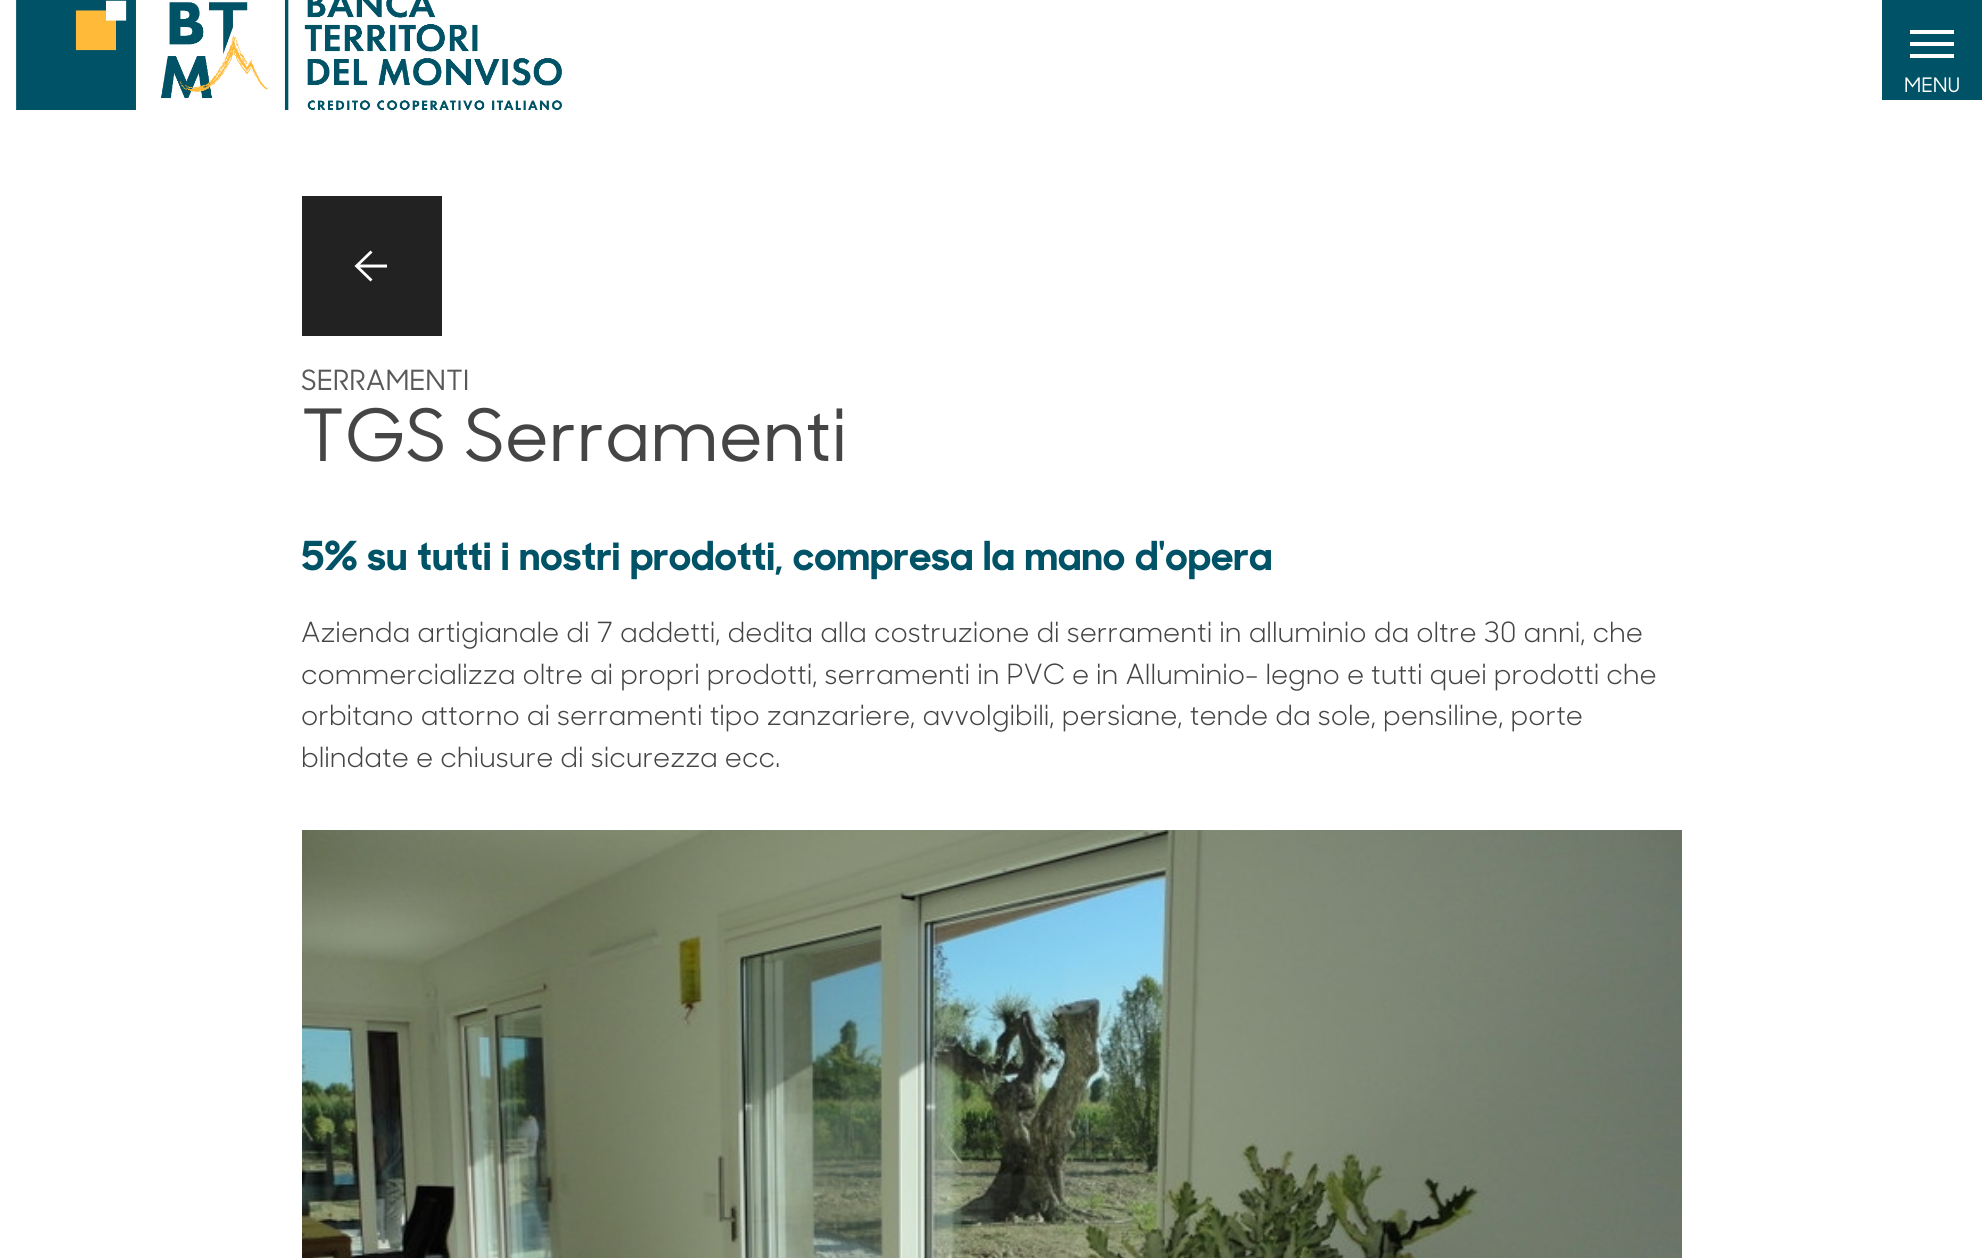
#include <cairo.h>
#include <math.h>
#include <stddef.h>


static void picture(cairo_t *cr, const char *path, double x, double y, double w, double h) {
    cairo_surface_t *image = cairo_image_surface_create_from_png(path);
    cairo_save(cr);
    cairo_set_source_surface(cr, image, x, y);
    cairo_rectangle(cr, x, y, w, h);
    cairo_fill(cr);
    cairo_restore(cr);
    cairo_surface_destroy(image);
}

int main(void) {
    cairo_surface_t *surface = cairo_image_surface_create(CAIRO_FORMAT_RGB24, 1982, 1258);
    cairo_t *cr = cairo_create(surface);
    cairo_font_options_t *options = cairo_font_options_create();
    cairo_font_options_set_hint_metrics(options, CAIRO_HINT_METRICS_OFF);
    cairo_font_options_set_hint_style(options, CAIRO_HINT_STYLE_NONE);
    cairo_set_font_options(cr, options);
    cairo_set_miter_limit(cr, 4);
    cairo_set_source_rgb(cr, 1, 1, 1);
    cairo_paint(cr);
    picture(cr, "img1.png", 16, 0, 547, 111);
    cairo_set_source_rgb(cr, 0, 0.325, 0.4);
    cairo_rectangle(cr, 1882, 0, 100, 100);
    cairo_fill(cr);
    cairo_set_source_rgb(cr, 1, 1, 1);
    cairo_rectangle(cr, 1910, 30, 44, 4);
    cairo_fill(cr);
    cairo_rectangle(cr, 1910, 42, 44, 4);
    cairo_fill(cr);
    cairo_rectangle(cr, 1910, 54, 44, 4);
    cairo_fill(cr);
    cairo_select_font_face(cr, "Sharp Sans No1 Medium", CAIRO_FONT_SLANT_NORMAL, CAIRO_FONT_WEIGHT_NORMAL);
    cairo_set_font_size(cr, 20);
    cairo_move_to(cr, 1904, 92);
    cairo_show_text(cr, "MENU");
    cairo_set_source_rgb(cr, 0.133, 0.133, 0.133);
    cairo_rectangle(cr, 302, 196, 140, 140);
    cairo_fill(cr);
    cairo_set_source_rgb(cr, 1, 1, 1);
    cairo_new_path(cr);
    cairo_move_to(cr, 360, 264.5);
    cairo_line_to(cr, 387, 264.5);
    cairo_line_to(cr, 387, 267.5);
    cairo_line_to(cr, 360, 267.5);
    cairo_line_to(cr, 372.5, 279.5);
    cairo_line_to(cr, 370.5, 281.5);
    cairo_line_to(cr, 354.5, 266);
    cairo_line_to(cr, 370.5, 250.5);
    cairo_line_to(cr, 372.5, 252.5);
    cairo_close_path(cr);
    cairo_fill(cr);
    cairo_set_font_size(cr, 27.85);
    cairo_set_source_rgb(cr, 0.349, 0.349, 0.349);
    cairo_move_to(cr, 301, 390);
    cairo_show_text(cr, "SERRAMENTI");
    cairo_set_font_size(cr, 72);
    cairo_set_source_rgb(cr, 0.271, 0.271, 0.271);
    cairo_move_to(cr, 301, 461);
    cairo_show_text(cr, "TGS Serramenti");
    cairo_select_font_face(cr, "Sharp Sans No1", CAIRO_FONT_SLANT_NORMAL, CAIRO_FONT_WEIGHT_BOLD);
    cairo_set_font_size(cr, 40);
    cairo_set_source_rgb(cr, 0, 0.325, 0.4);
    cairo_move_to(cr, 301, 570);
    cairo_show_text(cr, "5% su tutti i nostri prodotti, compresa la mano d'opera");
    cairo_select_font_face(cr, "Sharp Sans No1", CAIRO_FONT_SLANT_NORMAL, CAIRO_FONT_WEIGHT_NORMAL);
    cairo_set_font_size(cr, 27.85);
    cairo_set_source_rgb(cr, 0.271, 0.271, 0.271);
    cairo_move_to(cr, 301, 642);
    cairo_show_text(cr, "Azienda artigianale di 7 addetti, dedita alla costruzione di serramenti in alluminio da oltre 30 anni, che");
    cairo_move_to(cr, 301, 684);
    cairo_show_text(cr, "commercializza oltre ai propri prodotti, serramenti in PVC e in Alluminio- legno e tutti quei prodotti che");
    cairo_move_to(cr, 301, 725);
    cairo_show_text(cr, "orbitano attorno ai serramenti tipo zanzariere, avvolgibili, persiane, tende da sole, pensiline, porte");
    cairo_move_to(cr, 301, 767);
    cairo_show_text(cr, "blindate e chiusure di sicurezza ecc.");
    picture(cr, "img2.png", 302, 830, 1380, 428);
    cairo_surface_write_to_png(surface, "page.png");
    cairo_font_options_destroy(options);
    cairo_destroy(cr);
    cairo_surface_destroy(surface);
    return 0;
}
